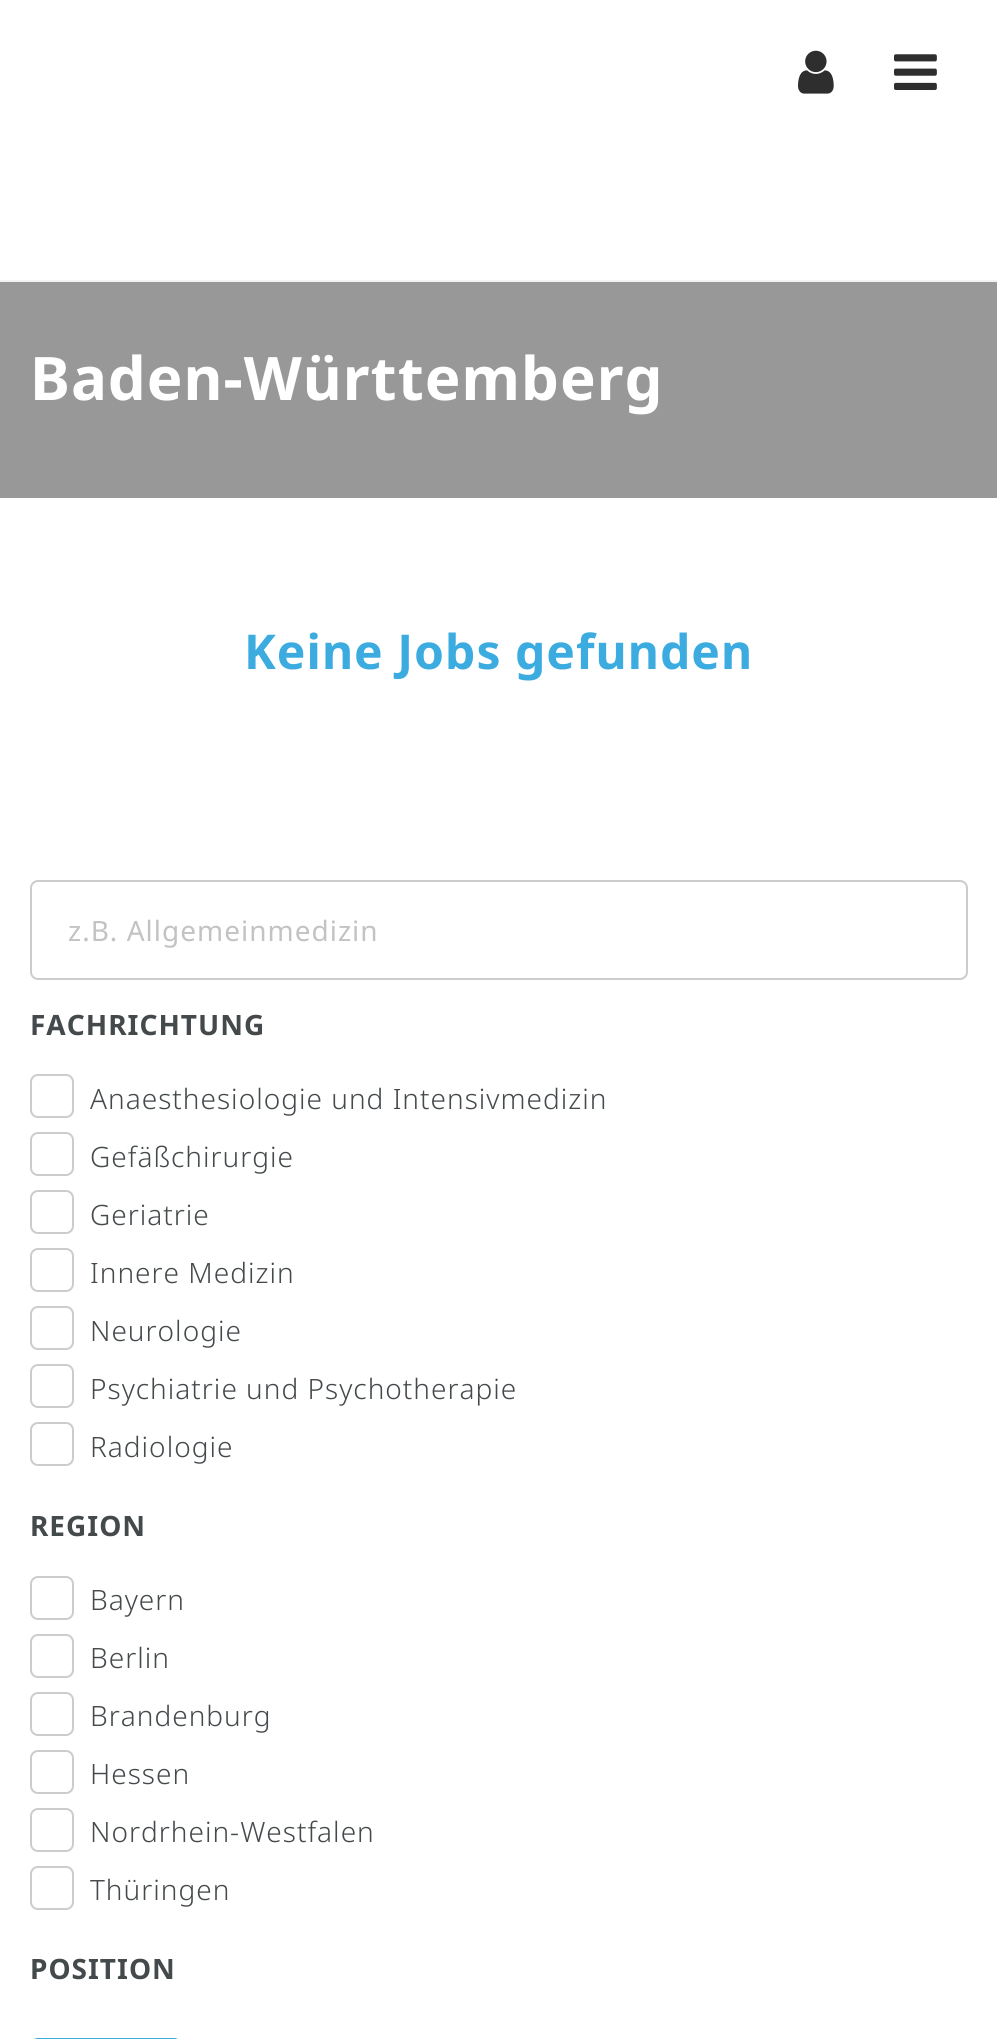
#include <cairo.h>
#include <math.h>
#include <stddef.h>


static void spaced_text(cairo_t *cr, double x, double y, const char *s, double letter, double word) {
    cairo_move_to(cr, x, y);
    while (*s) {
        char ch[5] = {0};
        int n = 0;
        do ch[n++] = *s++; while ((*s & 0xC0) == 0x80);
        cairo_show_text(cr, ch);
        cairo_rel_move_to(cr, letter + word * (*ch == ' '), 0);
    }
}

static void round_rect(cairo_t *cr, double x, double y, double w, double h, double r) {
    cairo_new_sub_path(cr);
    cairo_arc(cr, x + w - r, y + h - r, r, 0, M_PI / 2);
    cairo_arc(cr, x + r, y + h - r, r, M_PI / 2, M_PI);
    cairo_arc(cr, x + r, y + r, r, M_PI, 1.5 * M_PI);
    cairo_arc(cr, x + w - r, y + r, r, 1.5 * M_PI, 2 * M_PI);
    cairo_close_path(cr);
}

static void picture(cairo_t *cr, const char *path, double x, double y, double w, double h) {
    cairo_surface_t *image = cairo_image_surface_create_from_png(path);
    cairo_save(cr);
    cairo_set_source_surface(cr, image, x, y);
    cairo_rectangle(cr, x, y, w, h);
    cairo_fill(cr);
    cairo_restore(cr);
    cairo_surface_destroy(image);
}

int main(void) {
    cairo_surface_t *surface = cairo_image_surface_create(CAIRO_FORMAT_RGB24, 997, 2039);
    cairo_t *cr = cairo_create(surface);
    cairo_font_options_t *options = cairo_font_options_create();
    cairo_font_options_set_hint_metrics(options, CAIRO_HINT_METRICS_OFF);
    cairo_font_options_set_hint_style(options, CAIRO_HINT_STYLE_NONE);
    cairo_set_font_options(cr, options);
    cairo_set_miter_limit(cr, 4);
    cairo_set_source_rgb(cr, 1, 1, 1);
    cairo_paint(cr);
    cairo_set_source_rgb(cr, 0.949, 0.949, 0.949);
    cairo_rectangle(cr, 0, 280, 997, 2);
    cairo_fill(cr);
    picture(cr, "img1.png", 798, 50, 36, 44);
    picture(cr, "img2.png", 894, 54, 43, 36);
    cairo_set_source_rgb(cr, 0.596, 0.596, 0.596);
    cairo_rectangle(cr, 0, 282, 997, 216);
    cairo_fill(cr);
    cairo_select_font_face(cr, "Noto Sans", CAIRO_FONT_SLANT_NORMAL, CAIRO_FONT_WEIGHT_BOLD);
    cairo_set_font_size(cr, 60);
    cairo_set_source_rgb(cr, 1, 1, 1);
    spaced_text(cr, 30, 400, "Baden-Württemberg", 1, 0);
    cairo_set_font_size(cr, 48);
    cairo_set_source_rgb(cr, 0.235, 0.675, 0.878);
    spaced_text(cr, 244, 669, "Keine Jobs gefunden", 1, 0);
    round_rect(cr, 31, 881, 936, 98, 7);
    cairo_set_source_rgb(cr, 0.8, 0.8, 0.8);
    cairo_stroke(cr);
    cairo_select_font_face(cr, "Noto Sans", CAIRO_FONT_SLANT_NORMAL, CAIRO_FONT_WEIGHT_NORMAL);
    cairo_set_font_size(cr, 28);
    cairo_set_source_rgb(cr, 0.765, 0.765, 0.765);
    spaced_text(cr, 68, 941, "z.B. Allgemeinmedizin", 1, 0);
    cairo_select_font_face(cr, "Noto Sans", CAIRO_FONT_SLANT_NORMAL, CAIRO_FONT_WEIGHT_BOLD);
    cairo_set_source_rgb(cr, 0.267, 0.286, 0.294);
    spaced_text(cr, 30, 1035, "FACHRICHTUNG", 1, 0);
    round_rect(cr, 31, 1075, 42, 42, 7);
    cairo_set_source_rgb(cr, 0.8, 0.8, 0.8);
    cairo_stroke(cr);
    cairo_select_font_face(cr, "Noto Sans Light", CAIRO_FONT_SLANT_NORMAL, CAIRO_FONT_WEIGHT_NORMAL);
    cairo_set_source_rgb(cr, 0.267, 0.286, 0.294);
    spaced_text(cr, 90, 1109, "Anaesthesiologie und Intensivmedizin", 1, 0);
    round_rect(cr, 31, 1133, 42, 42, 7);
    cairo_set_source_rgb(cr, 0.8, 0.8, 0.8);
    cairo_stroke(cr);
    cairo_set_source_rgb(cr, 0.267, 0.286, 0.294);
    spaced_text(cr, 90, 1167, "Gefäßchirurgie", 1, 0);
    round_rect(cr, 31, 1191, 42, 42, 7);
    cairo_set_source_rgb(cr, 0.8, 0.8, 0.8);
    cairo_stroke(cr);
    cairo_set_source_rgb(cr, 0.267, 0.286, 0.294);
    spaced_text(cr, 90, 1225, "Geriatrie", 1, 0);
    round_rect(cr, 31, 1249, 42, 42, 7);
    cairo_set_source_rgb(cr, 0.8, 0.8, 0.8);
    cairo_stroke(cr);
    cairo_set_source_rgb(cr, 0.267, 0.286, 0.294);
    spaced_text(cr, 90, 1283, "Innere Medizin", 1, 0);
    round_rect(cr, 31, 1307, 42, 42, 7);
    cairo_set_source_rgb(cr, 0.8, 0.8, 0.8);
    cairo_stroke(cr);
    cairo_set_source_rgb(cr, 0.267, 0.286, 0.294);
    spaced_text(cr, 90, 1341, "Neurologie", 1, 0);
    round_rect(cr, 31, 1365, 42, 42, 7);
    cairo_set_source_rgb(cr, 0.8, 0.8, 0.8);
    cairo_stroke(cr);
    cairo_set_source_rgb(cr, 0.267, 0.286, 0.294);
    spaced_text(cr, 90, 1399, "Psychiatrie und Psychotherapie", 1, 0);
    round_rect(cr, 31, 1423, 42, 42, 7);
    cairo_set_source_rgb(cr, 0.8, 0.8, 0.8);
    cairo_stroke(cr);
    cairo_set_source_rgb(cr, 0.267, 0.286, 0.294);
    spaced_text(cr, 90, 1457, "Radiologie", 1, 0);
    cairo_select_font_face(cr, "Noto Sans", CAIRO_FONT_SLANT_NORMAL, CAIRO_FONT_WEIGHT_BOLD);
    spaced_text(cr, 30, 1536, "REGION", 1, 0);
    round_rect(cr, 31, 1577, 42, 42, 7);
    cairo_set_source_rgb(cr, 0.8, 0.8, 0.8);
    cairo_stroke(cr);
    cairo_select_font_face(cr, "Noto Sans Light", CAIRO_FONT_SLANT_NORMAL, CAIRO_FONT_WEIGHT_NORMAL);
    cairo_set_source_rgb(cr, 0.267, 0.286, 0.294);
    spaced_text(cr, 90, 1610, "Bayern", 1, 0);
    round_rect(cr, 31, 1635, 42, 42, 7);
    cairo_set_source_rgb(cr, 0.8, 0.8, 0.8);
    cairo_stroke(cr);
    cairo_set_source_rgb(cr, 0.267, 0.286, 0.294);
    spaced_text(cr, 90, 1668, "Berlin", 1, 0);
    round_rect(cr, 31, 1693, 42, 42, 7);
    cairo_set_source_rgb(cr, 0.8, 0.8, 0.8);
    cairo_stroke(cr);
    cairo_set_source_rgb(cr, 0.267, 0.286, 0.294);
    spaced_text(cr, 90, 1726, "Brandenburg", 1, 0);
    round_rect(cr, 31, 1751, 42, 42, 7);
    cairo_set_source_rgb(cr, 0.8, 0.8, 0.8);
    cairo_stroke(cr);
    cairo_set_source_rgb(cr, 0.267, 0.286, 0.294);
    spaced_text(cr, 90, 1784, "Hessen", 1, 0);
    round_rect(cr, 31, 1809, 42, 42, 7);
    cairo_set_source_rgb(cr, 0.8, 0.8, 0.8);
    cairo_stroke(cr);
    cairo_set_source_rgb(cr, 0.267, 0.286, 0.294);
    spaced_text(cr, 90, 1842, "Nordrhein-Westfalen", 1, 0);
    round_rect(cr, 31, 1867, 42, 42, 7);
    cairo_set_source_rgb(cr, 0.8, 0.8, 0.8);
    cairo_stroke(cr);
    cairo_set_source_rgb(cr, 0.267, 0.286, 0.294);
    spaced_text(cr, 90, 1900, "Thüringen", 1, 0);
    cairo_select_font_face(cr, "Noto Sans", CAIRO_FONT_SLANT_NORMAL, CAIRO_FONT_WEIGHT_BOLD);
    spaced_text(cr, 30, 1979, "POSITION", 1, 0);
    cairo_set_source_rgb(cr, 0.235, 0.675, 0.878);
    round_rect(cr, 30, 2038, 152, 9, 8);
    cairo_fill(cr);
    cairo_surface_write_to_png(surface, "page.png");
    cairo_font_options_destroy(options);
    cairo_destroy(cr);
    cairo_surface_destroy(surface);
    return 0;
}
